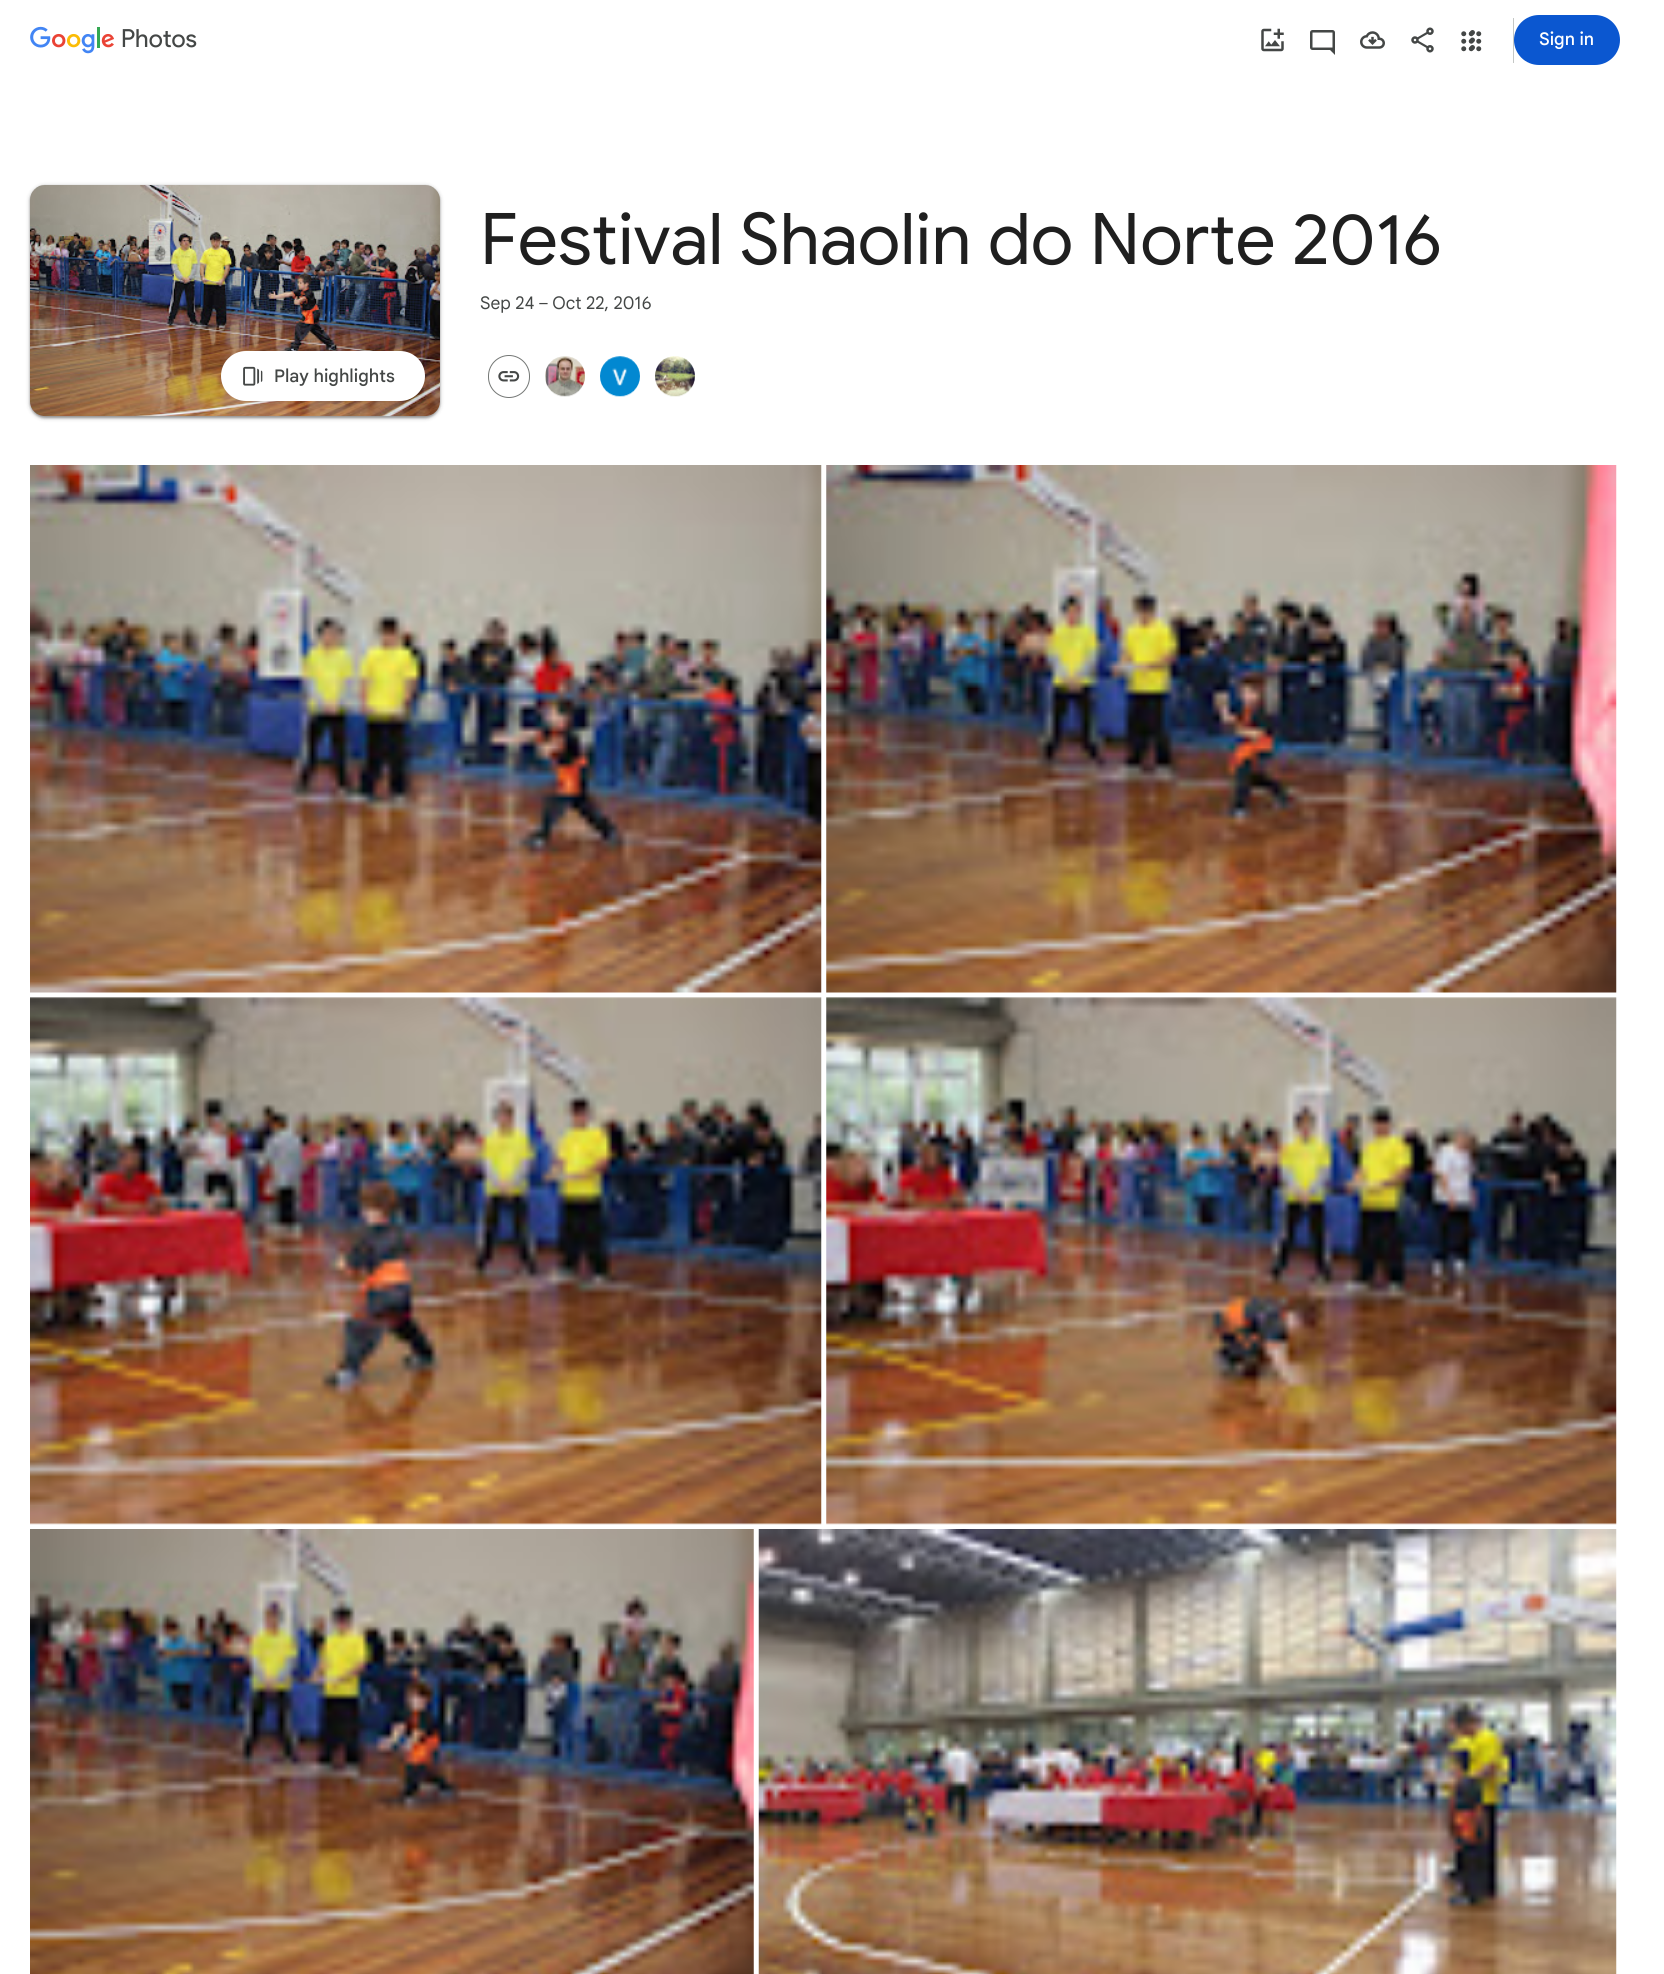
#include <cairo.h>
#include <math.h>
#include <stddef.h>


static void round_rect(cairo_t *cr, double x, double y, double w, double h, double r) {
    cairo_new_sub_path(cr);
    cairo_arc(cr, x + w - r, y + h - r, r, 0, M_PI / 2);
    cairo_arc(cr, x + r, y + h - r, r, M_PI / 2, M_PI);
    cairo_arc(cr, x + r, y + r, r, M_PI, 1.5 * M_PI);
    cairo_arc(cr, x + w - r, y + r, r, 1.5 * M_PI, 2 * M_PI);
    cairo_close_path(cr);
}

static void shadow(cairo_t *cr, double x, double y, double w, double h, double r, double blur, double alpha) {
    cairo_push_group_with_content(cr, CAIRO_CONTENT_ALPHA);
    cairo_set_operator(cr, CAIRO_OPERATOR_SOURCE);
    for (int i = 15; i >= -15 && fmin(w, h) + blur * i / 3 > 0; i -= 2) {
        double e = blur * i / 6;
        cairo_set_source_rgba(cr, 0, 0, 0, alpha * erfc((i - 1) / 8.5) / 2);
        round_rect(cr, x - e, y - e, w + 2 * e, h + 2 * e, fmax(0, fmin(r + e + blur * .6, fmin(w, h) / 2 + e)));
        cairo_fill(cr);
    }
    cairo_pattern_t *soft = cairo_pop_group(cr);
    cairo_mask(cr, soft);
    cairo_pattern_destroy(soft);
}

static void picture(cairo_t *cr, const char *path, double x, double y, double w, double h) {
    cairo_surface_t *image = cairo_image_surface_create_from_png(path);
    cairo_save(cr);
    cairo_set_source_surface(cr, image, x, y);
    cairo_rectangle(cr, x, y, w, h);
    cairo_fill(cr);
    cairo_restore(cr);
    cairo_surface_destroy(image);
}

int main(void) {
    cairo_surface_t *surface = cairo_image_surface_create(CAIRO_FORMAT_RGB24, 1664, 1974);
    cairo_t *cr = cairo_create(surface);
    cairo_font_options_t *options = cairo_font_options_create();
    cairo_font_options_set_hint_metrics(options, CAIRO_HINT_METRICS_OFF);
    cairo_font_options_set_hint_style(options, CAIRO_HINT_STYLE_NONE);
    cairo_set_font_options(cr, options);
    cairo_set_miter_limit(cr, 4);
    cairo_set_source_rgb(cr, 1, 1, 1);
    cairo_paint(cr);
    picture(cr, "img1.png", 30, 26, 84, 28);
    cairo_select_font_face(cr, "Product Sans", CAIRO_FONT_SLANT_NORMAL, CAIRO_FONT_WEIGHT_NORMAL);
    cairo_set_font_size(cr, 25);
    cairo_set_source_rgb(cr, 0.267, 0.278, 0.275);
    cairo_move_to(cr, 121, 47);
    cairo_show_text(cr, "Photos");
    picture(cr, "img2.png", 1261, 28, 23, 24);
    picture(cr, "img3.png", 1310, 30, 25, 25);
    picture(cr, "img4.png", 1360, 31, 25, 18);
    picture(cr, "img5.png", 1411, 27, 23, 26);
    picture(cr, "img6.png", 1470, 30, 5, 20);
    cairo_set_source_rgb(cr, 0.769, 0.78, 0.773);
    cairo_rectangle(cr, 1513, 18, 1, 45);
    cairo_fill(cr);
    cairo_select_font_face(cr, "Google Sans", CAIRO_FONT_SLANT_NORMAL, CAIRO_FONT_WEIGHT_NORMAL);
    cairo_set_font_size(cr, 71.25);
    cairo_set_source_rgb(cr, 0.122, 0.122, 0.122);
    cairo_move_to(cr, 480, 264);
    cairo_show_text(cr, "Festival Shaolin do Norte 2016");
    cairo_select_font_face(cr, "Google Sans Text", CAIRO_FONT_SLANT_NORMAL, CAIRO_FONT_WEIGHT_NORMAL);
    cairo_set_font_size(cr, 17.5);
    cairo_set_source_rgb(cr, 0.267, 0.278, 0.275);
    cairo_move_to(cr, 480, 309);
    cairo_show_text(cr, "Sep 24 – Oct 22, 2016");
    round_rect(cr, 488.5, 355.5, 41, 42, 20.5);
    cairo_set_source_rgb(cr, 0.455, 0.467, 0.459);
    cairo_set_line_width(cr, 1);
    cairo_stroke(cr);
    picture(cr, "img7.png", 498, 371, 22, 11);
    picture(cr, "img8.png", 545, 356, 40, 41);
    picture(cr, "img9.png", 600, 356, 40, 41);
    picture(cr, "img10.png", 655, 356, 40, 41);
    cairo_set_source_rgb(cr, 0, 0, 0);
    shadow(cr, 29, 185, 412, 234, 16, 2, 0.15);
    shadow(cr, 30, 186, 410, 232, 15, 1, 0.3);
    picture(cr, "img11.png", 30, 185, 410, 232);
    cairo_set_source_rgb(cr, 1, 1, 1);
    round_rect(cr, 221, 351, 204, 50, 25);
    cairo_fill(cr);
    picture(cr, "img12.png", 243, 366, 20, 20);
    cairo_select_font_face(cr, "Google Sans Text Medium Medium", CAIRO_FONT_SLANT_NORMAL, CAIRO_FONT_WEIGHT_NORMAL);
    cairo_set_source_rgb(cr, 0.267, 0.278, 0.275);
    cairo_move_to(cr, 274, 382);
    cairo_show_text(cr, "Play highlights");
    picture(cr, "img13.png", 30, 465, 792, 528);
    picture(cr, "img14.png", 826, 465, 791, 528);
    picture(cr, "img15.png", 30, 997, 792, 528);
    picture(cr, "img16.png", 826, 997, 791, 528);
    picture(cr, "img17.png", 30, 1529, 724, 445);
    picture(cr, "img18.png", 758, 1529, 859, 445);
    picture(cr, "img19.png", 1461, 31, 21, 21);
    cairo_set_source_rgb(cr, 0.043, 0.341, 0.816);
    round_rect(cr, 1514, 15, 106, 50, 25);
    cairo_fill(cr);
    cairo_set_source_rgb(cr, 1, 1, 1);
    cairo_move_to(cr, 1539, 45);
    cairo_show_text(cr, "Sign in");
    cairo_surface_write_to_png(surface, "page.png");
    cairo_font_options_destroy(options);
    cairo_destroy(cr);
    cairo_surface_destroy(surface);
    return 0;
}
